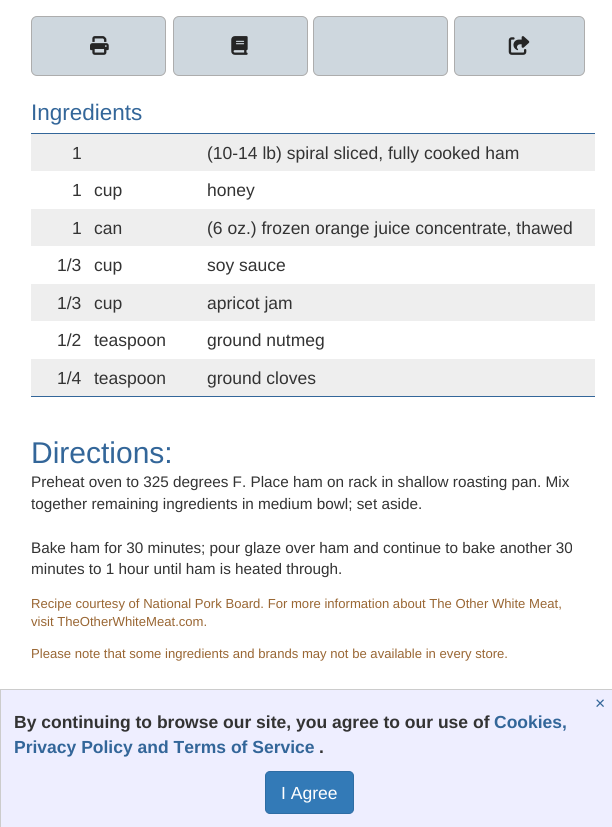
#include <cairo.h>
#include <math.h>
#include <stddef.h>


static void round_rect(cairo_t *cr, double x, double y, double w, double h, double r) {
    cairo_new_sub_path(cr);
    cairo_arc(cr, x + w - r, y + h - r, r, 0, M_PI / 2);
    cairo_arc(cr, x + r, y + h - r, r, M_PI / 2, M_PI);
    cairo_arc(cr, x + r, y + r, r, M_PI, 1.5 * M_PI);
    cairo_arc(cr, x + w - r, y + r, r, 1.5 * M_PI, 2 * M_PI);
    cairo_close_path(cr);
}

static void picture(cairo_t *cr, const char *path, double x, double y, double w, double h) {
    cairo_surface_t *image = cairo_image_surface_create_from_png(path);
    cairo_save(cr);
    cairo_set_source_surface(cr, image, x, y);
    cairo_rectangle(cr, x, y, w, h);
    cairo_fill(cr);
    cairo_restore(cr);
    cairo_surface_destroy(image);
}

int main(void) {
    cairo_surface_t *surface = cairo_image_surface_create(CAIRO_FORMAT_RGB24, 612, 827);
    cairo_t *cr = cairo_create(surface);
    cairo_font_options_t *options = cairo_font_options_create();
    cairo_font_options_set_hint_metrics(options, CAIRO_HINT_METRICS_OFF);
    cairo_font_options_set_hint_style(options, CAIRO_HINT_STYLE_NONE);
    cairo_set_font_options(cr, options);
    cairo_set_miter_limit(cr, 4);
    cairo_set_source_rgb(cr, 1, 1, 1);
    cairo_paint(cr);
    cairo_set_source_rgb(cr, 0.808, 0.843, 0.871);
    round_rect(cr, 31.5, 16.5, 134, 59, 5.5);
    cairo_fill_preserve(cr);
    cairo_set_source_rgb(cr, 0.678, 0.678, 0.678);
    cairo_set_line_width(cr, 1);
    cairo_stroke(cr);
    picture(cr, "img1.png", 90, 36, 19, 19);
    cairo_set_source_rgb(cr, 0.808, 0.843, 0.871);
    round_rect(cr, 173.5, 16.5, 134, 59, 5.5);
    cairo_fill_preserve(cr);
    cairo_set_source_rgb(cr, 0.678, 0.678, 0.678);
    cairo_stroke(cr);
    picture(cr, "img2.png", 231, 36, 17, 19);
    cairo_set_source_rgb(cr, 0.808, 0.843, 0.871);
    round_rect(cr, 313.5, 16.5, 134, 59, 5.5);
    cairo_fill_preserve(cr);
    cairo_set_source_rgb(cr, 0.678, 0.678, 0.678);
    cairo_stroke(cr);
    cairo_set_source_rgb(cr, 0.808, 0.843, 0.871);
    round_rect(cr, 454.5, 16.5, 130, 59, 5.5);
    cairo_fill_preserve(cr);
    cairo_set_source_rgb(cr, 0.678, 0.678, 0.678);
    cairo_stroke(cr);
    picture(cr, "img3.png", 508, 36, 22, 19);
    cairo_select_font_face(cr, "Liberation Sans", CAIRO_FONT_SLANT_NORMAL, CAIRO_FONT_WEIGHT_NORMAL);
    cairo_set_font_size(cr, 22.5);
    cairo_set_source_rgb(cr, 0.2, 0.4, 0.6);
    cairo_move_to(cr, 31, 120);
    cairo_show_text(cr, "Ingredients");
    cairo_rectangle(cr, 31, 133, 564, 1);
    cairo_fill(cr);
    cairo_rectangle(cr, 31, 396, 564, 1);
    cairo_fill(cr);
    cairo_set_source_rgb(cr, 0.933, 0.933, 0.933);
    cairo_rectangle(cr, 31, 134, 564, 37);
    cairo_fill(cr);
    cairo_set_font_size(cr, 17.5);
    cairo_set_source_rgb(cr, 0.2, 0.2, 0.2);
    cairo_move_to(cr, 72, 159);
    cairo_show_text(cr, "1");
    cairo_move_to(cr, 207, 159);
    cairo_show_text(cr, "(10-14 lb) spiral sliced, fully cooked ham");
    cairo_move_to(cr, 72, 196);
    cairo_show_text(cr, "1");
    cairo_move_to(cr, 94, 196);
    cairo_show_text(cr, "cup");
    cairo_move_to(cr, 207, 196);
    cairo_show_text(cr, "honey");
    cairo_set_source_rgb(cr, 0.933, 0.933, 0.933);
    cairo_rectangle(cr, 31, 209, 564, 37);
    cairo_fill(cr);
    cairo_set_source_rgb(cr, 0.2, 0.2, 0.2);
    cairo_move_to(cr, 72, 234);
    cairo_show_text(cr, "1");
    cairo_move_to(cr, 94, 234);
    cairo_show_text(cr, "can");
    cairo_move_to(cr, 207, 234);
    cairo_show_text(cr, "(6 oz.) frozen orange juice concentrate, thawed");
    cairo_move_to(cr, 57, 271);
    cairo_show_text(cr, "1/3");
    cairo_move_to(cr, 94, 271);
    cairo_show_text(cr, "cup");
    cairo_move_to(cr, 207, 271);
    cairo_show_text(cr, "soy sauce");
    cairo_set_source_rgb(cr, 0.933, 0.933, 0.933);
    cairo_rectangle(cr, 31, 284, 564, 37);
    cairo_fill(cr);
    cairo_set_source_rgb(cr, 0.2, 0.2, 0.2);
    cairo_move_to(cr, 57, 309);
    cairo_show_text(cr, "1/3");
    cairo_move_to(cr, 94, 309);
    cairo_show_text(cr, "cup");
    cairo_move_to(cr, 207, 309);
    cairo_show_text(cr, "apricot jam");
    cairo_move_to(cr, 57, 346);
    cairo_show_text(cr, "1/2");
    cairo_move_to(cr, 94, 346);
    cairo_show_text(cr, "teaspoon");
    cairo_move_to(cr, 207, 346);
    cairo_show_text(cr, "ground nutmeg");
    cairo_set_source_rgb(cr, 0.933, 0.933, 0.933);
    cairo_rectangle(cr, 31, 359, 564, 37);
    cairo_fill(cr);
    cairo_set_source_rgb(cr, 0.2, 0.2, 0.2);
    cairo_move_to(cr, 57, 384);
    cairo_show_text(cr, "1/4");
    cairo_move_to(cr, 94, 384);
    cairo_show_text(cr, "teaspoon");
    cairo_move_to(cr, 207, 384);
    cairo_show_text(cr, "ground cloves");
    cairo_set_font_size(cr, 30);
    cairo_set_source_rgb(cr, 0.2, 0.4, 0.6);
    cairo_move_to(cr, 31, 463);
    cairo_show_text(cr, "Directions:");
    cairo_set_font_size(cr, 15.3);
    cairo_set_source_rgb(cr, 0.2, 0.2, 0.2);
    cairo_move_to(cr, 31, 487);
    cairo_show_text(cr, "Preheat oven to 325 degrees F. Place ham on rack in shallow roasting pan. Mix");
    cairo_move_to(cr, 31, 509);
    cairo_show_text(cr, "together remaining ingredients in medium bowl; set aside.");
    cairo_move_to(cr, 31, 553);
    cairo_show_text(cr, "Bake ham for 30 minutes; pour glaze over ham and continue to bake another 30");
    cairo_move_to(cr, 31, 574);
    cairo_show_text(cr, "minutes to 1 hour until ham is heated through.");
    cairo_set_font_size(cr, 13.1);
    cairo_set_source_rgb(cr, 0.6, 0.4, 0.2);
    cairo_move_to(cr, 31, 608);
    cairo_show_text(cr, "Recipe courtesy of National Pork Board. For more information about The Other White Meat,");
    cairo_move_to(cr, 31, 626);
    cairo_show_text(cr, "visit TheOtherWhiteMeat.com.");
    cairo_move_to(cr, 31, 658);
    cairo_show_text(cr, "Please note that some ingredients and brands may not be available in every store.");
    cairo_set_source_rgb(cr, 0.933, 0.933, 1);
    cairo_rectangle(cr, 0.5, 689.5, 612, 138);
    cairo_fill_preserve(cr);
    cairo_set_source_rgb(cr, 0.8, 0.8, 0.8);
    cairo_stroke(cr);
    cairo_set_font_size(cr, 17.5);
    cairo_set_source_rgb(cr, 0.2, 0.4, 0.6);
    cairo_move_to(cr, 595, 709);
    cairo_show_text(cr, "×");
    cairo_select_font_face(cr, "Liberation Sans", CAIRO_FONT_SLANT_NORMAL, CAIRO_FONT_WEIGHT_BOLD);
    cairo_set_source_rgb(cr, 0.2, 0.2, 0.2);
    cairo_move_to(cr, 14, 728);
    cairo_show_text(cr, "By continuing to browse our site, you agree to our use of");
    cairo_set_source_rgb(cr, 0.2, 0.4, 0.6);
    cairo_move_to(cr, 494, 728);
    cairo_show_text(cr, "Cookies,");
    cairo_move_to(cr, 14, 753);
    cairo_show_text(cr, "Privacy Policy and Terms of Service");
    cairo_set_source_rgb(cr, 0.2, 0.2, 0.2);
    cairo_move_to(cr, 319, 753);
    cairo_show_text(cr, ".");
    cairo_set_source_rgb(cr, 0.2, 0.478, 0.718);
    round_rect(cr, 265.5, 771.5, 88, 42, 4.5);
    cairo_fill_preserve(cr);
    cairo_set_source_rgb(cr, 0.18, 0.427, 0.643);
    cairo_stroke(cr);
    cairo_select_font_face(cr, "Liberation Sans", CAIRO_FONT_SLANT_NORMAL, CAIRO_FONT_WEIGHT_NORMAL);
    cairo_set_source_rgb(cr, 1, 1, 1);
    cairo_move_to(cr, 281, 799);
    cairo_show_text(cr, "I Agree");
    cairo_surface_write_to_png(surface, "page.png");
    cairo_font_options_destroy(options);
    cairo_destroy(cr);
    cairo_surface_destroy(surface);
    return 0;
}
